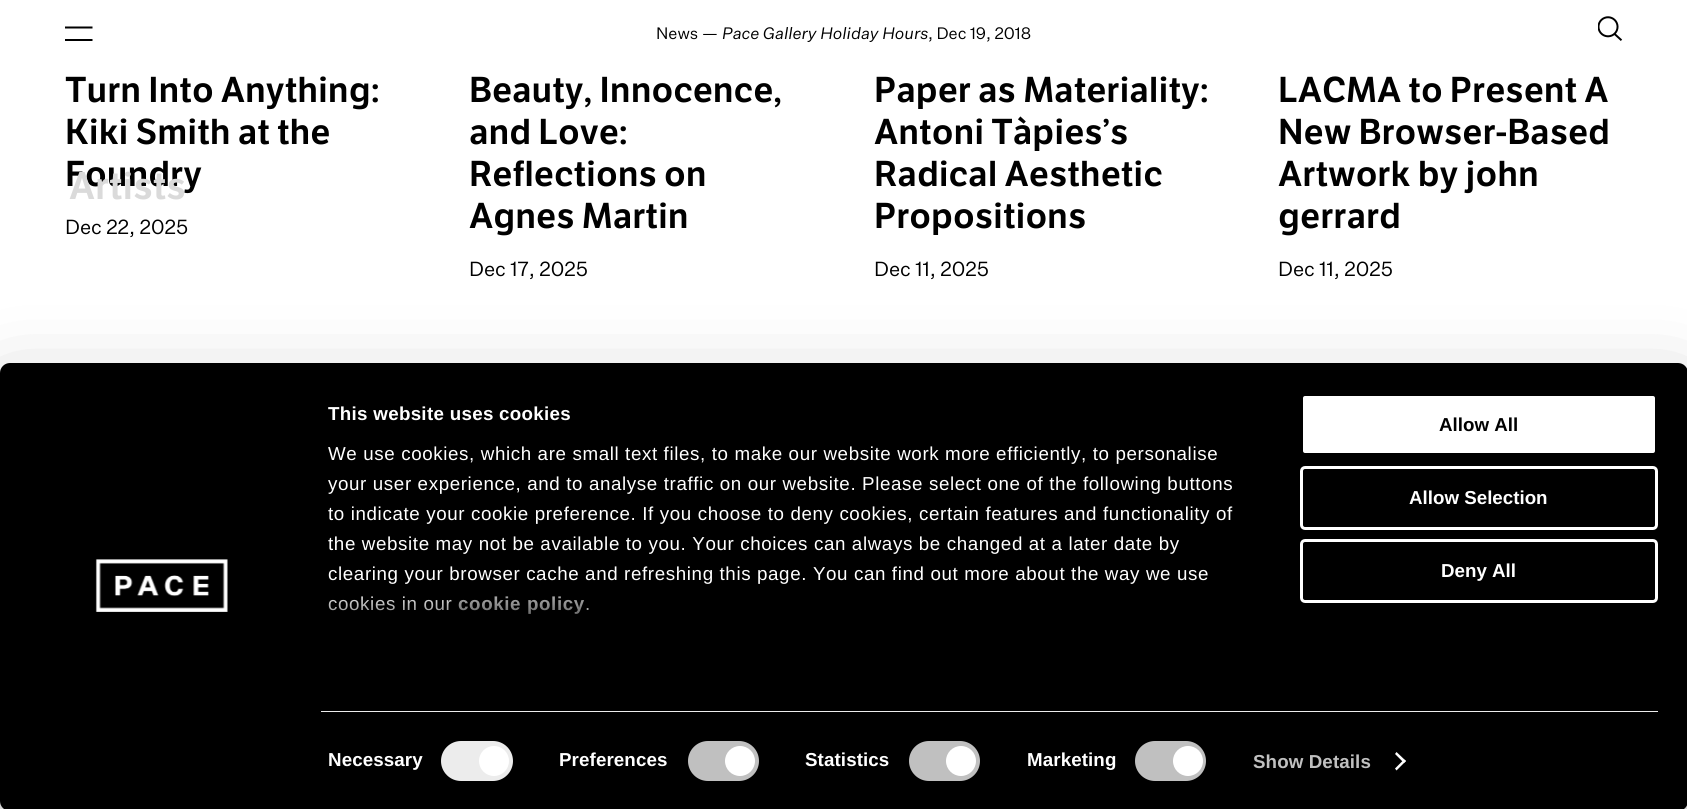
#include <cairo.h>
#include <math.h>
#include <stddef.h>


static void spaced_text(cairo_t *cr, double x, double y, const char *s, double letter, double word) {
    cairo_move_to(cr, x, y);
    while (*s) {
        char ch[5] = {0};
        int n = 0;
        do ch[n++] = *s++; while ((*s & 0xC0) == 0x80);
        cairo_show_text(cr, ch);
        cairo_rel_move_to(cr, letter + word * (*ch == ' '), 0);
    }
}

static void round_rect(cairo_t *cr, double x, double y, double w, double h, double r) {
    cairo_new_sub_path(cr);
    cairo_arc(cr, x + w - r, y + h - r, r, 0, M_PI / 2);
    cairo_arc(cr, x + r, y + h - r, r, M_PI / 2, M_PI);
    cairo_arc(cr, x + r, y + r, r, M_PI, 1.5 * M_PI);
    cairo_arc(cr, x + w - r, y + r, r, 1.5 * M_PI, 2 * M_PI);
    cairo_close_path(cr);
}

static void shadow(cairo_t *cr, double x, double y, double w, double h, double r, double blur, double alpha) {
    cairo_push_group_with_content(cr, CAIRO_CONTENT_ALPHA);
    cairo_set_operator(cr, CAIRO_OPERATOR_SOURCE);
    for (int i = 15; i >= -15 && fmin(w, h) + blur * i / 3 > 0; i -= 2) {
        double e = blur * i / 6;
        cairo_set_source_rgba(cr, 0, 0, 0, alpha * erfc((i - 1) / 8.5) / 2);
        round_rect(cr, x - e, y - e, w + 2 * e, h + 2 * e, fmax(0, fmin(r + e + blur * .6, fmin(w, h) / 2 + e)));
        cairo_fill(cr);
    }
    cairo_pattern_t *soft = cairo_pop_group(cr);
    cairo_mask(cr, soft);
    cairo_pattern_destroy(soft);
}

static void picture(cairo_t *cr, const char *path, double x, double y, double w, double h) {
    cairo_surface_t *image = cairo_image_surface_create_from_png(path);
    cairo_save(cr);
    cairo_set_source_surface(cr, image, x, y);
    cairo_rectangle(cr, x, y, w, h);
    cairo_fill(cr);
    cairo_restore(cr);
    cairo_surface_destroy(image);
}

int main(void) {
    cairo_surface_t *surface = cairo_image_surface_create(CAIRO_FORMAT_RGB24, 1687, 809);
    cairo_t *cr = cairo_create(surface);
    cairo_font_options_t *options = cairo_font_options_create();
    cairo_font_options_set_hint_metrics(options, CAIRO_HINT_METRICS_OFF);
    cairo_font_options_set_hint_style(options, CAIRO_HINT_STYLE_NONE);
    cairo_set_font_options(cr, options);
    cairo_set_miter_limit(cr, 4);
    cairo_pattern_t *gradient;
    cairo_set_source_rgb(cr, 1, 1, 1);
    cairo_paint(cr);
    cairo_set_source_rgb(cr, 0, 0, 0);
    cairo_set_fill_rule(cr, CAIRO_FILL_RULE_EVEN_ODD);
    cairo_new_path(cr);
    cairo_move_to(cr, 65, 28.5);
    cairo_line_to(cr, 92.5, 28.5);
    cairo_line_to(cr, 92.5, 26.5);
    cairo_line_to(cr, 65, 26.5);
    cairo_close_path(cr);
    cairo_move_to(cr, 65, 41);
    cairo_line_to(cr, 92.5, 41);
    cairo_line_to(cr, 92.5, 39);
    cairo_line_to(cr, 65, 39);
    cairo_close_path(cr);
    cairo_fill(cr);
    cairo_select_font_face(cr, "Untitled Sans", CAIRO_FONT_SLANT_NORMAL, CAIRO_FONT_WEIGHT_NORMAL);
    cairo_set_font_size(cr, 16.25);
    cairo_move_to(cr, 656, 39);
    cairo_show_text(cr, "News —");
    cairo_select_font_face(cr, "Untitled Sans", CAIRO_FONT_SLANT_ITALIC, CAIRO_FONT_WEIGHT_NORMAL);
    cairo_move_to(cr, 722, 39);
    cairo_show_text(cr, "Pace Gallery Holiday Hours");
    cairo_select_font_face(cr, "Untitled Sans", CAIRO_FONT_SLANT_NORMAL, CAIRO_FONT_WEIGHT_NORMAL);
    cairo_move_to(cr, 928, 39);
    cairo_show_text(cr, ", Dec 19, 2018");
    picture(cr, "img1.png", 1598, 16, 25, 25);
    cairo_select_font_face(cr, "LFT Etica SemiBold", CAIRO_FONT_SLANT_NORMAL, CAIRO_FONT_WEIGHT_NORMAL);
    cairo_set_font_size(cr, 35);
    cairo_move_to(cr, 65, 186);
    cairo_show_text(cr, "Foundry");
    cairo_set_font_size(cr, 37.5);
    cairo_set_source_rgb(cr, 0.855, 0.855, 0.855);
    cairo_move_to(cr, 69, 199);
    cairo_show_text(cr, "Artists");
    cairo_set_font_size(cr, 35);
    cairo_set_source_rgb(cr, 0, 0, 0);
    cairo_move_to(cr, 65, 102);
    cairo_show_text(cr, "Turn Into Anything:");
    cairo_move_to(cr, 65, 144);
    cairo_show_text(cr, "Kiki Smith at the");
    cairo_select_font_face(cr, "Untitled Sans", CAIRO_FONT_SLANT_NORMAL, CAIRO_FONT_WEIGHT_NORMAL);
    cairo_set_font_size(cr, 20);
    cairo_move_to(cr, 65, 234);
    cairo_show_text(cr, "Dec 22, 2025");
    cairo_select_font_face(cr, "LFT Etica SemiBold", CAIRO_FONT_SLANT_NORMAL, CAIRO_FONT_WEIGHT_NORMAL);
    cairo_set_font_size(cr, 35);
    cairo_move_to(cr, 469, 102);
    cairo_show_text(cr, "Beauty, Innocence,");
    cairo_move_to(cr, 469, 144);
    cairo_show_text(cr, "and Love:");
    cairo_move_to(cr, 469, 186);
    cairo_show_text(cr, "Reflections on");
    cairo_move_to(cr, 469, 228);
    cairo_show_text(cr, "Agnes Martin");
    cairo_select_font_face(cr, "Untitled Sans", CAIRO_FONT_SLANT_NORMAL, CAIRO_FONT_WEIGHT_NORMAL);
    cairo_set_font_size(cr, 20);
    cairo_move_to(cr, 469, 276);
    cairo_show_text(cr, "Dec 17, 2025");
    cairo_select_font_face(cr, "LFT Etica SemiBold", CAIRO_FONT_SLANT_NORMAL, CAIRO_FONT_WEIGHT_NORMAL);
    cairo_set_font_size(cr, 35);
    cairo_move_to(cr, 874, 102);
    cairo_show_text(cr, "Paper as Materiality:");
    cairo_move_to(cr, 874, 144);
    cairo_show_text(cr, "Antoni Tàpies’s");
    cairo_move_to(cr, 874, 186);
    cairo_show_text(cr, "Radical Aesthetic");
    cairo_move_to(cr, 874, 228);
    cairo_show_text(cr, "Propositions");
    cairo_select_font_face(cr, "Untitled Sans", CAIRO_FONT_SLANT_NORMAL, CAIRO_FONT_WEIGHT_NORMAL);
    cairo_set_font_size(cr, 20);
    cairo_move_to(cr, 874, 276);
    cairo_show_text(cr, "Dec 11, 2025");
    cairo_select_font_face(cr, "LFT Etica SemiBold", CAIRO_FONT_SLANT_NORMAL, CAIRO_FONT_WEIGHT_NORMAL);
    cairo_set_font_size(cr, 35);
    cairo_move_to(cr, 1278, 102);
    cairo_show_text(cr, "LACMA to Present A");
    cairo_move_to(cr, 1278, 144);
    cairo_show_text(cr, "New Browser-Based");
    cairo_move_to(cr, 1278, 186);
    cairo_show_text(cr, "Artwork by john");
    cairo_move_to(cr, 1278, 228);
    cairo_show_text(cr, "gerrard");
    cairo_select_font_face(cr, "Untitled Sans", CAIRO_FONT_SLANT_NORMAL, CAIRO_FONT_WEIGHT_NORMAL);
    cairo_set_font_size(cr, 20);
    cairo_move_to(cr, 1278, 276);
    cairo_show_text(cr, "Dec 11, 2025");
    cairo_set_source_rgb(cr, 0.976, 0.976, 0.976);
    cairo_rectangle(cr, 0, 801, 1687, 8);
    cairo_fill(cr);
    cairo_set_source_rgb(cr, 0, 0, 0);
    shadow(cr, 0, 400, 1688, 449, 10, 44, 0.3);
    cairo_set_source_rgb(cr, 0, 0, 0);
    round_rect(cr, 0, 363, 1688, 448, 10);
    cairo_fill(cr);
    picture(cr, "img2.png", 95, 559, 133, 53);
    cairo_select_font_face(cr, "Liberation Sans", CAIRO_FONT_SLANT_NORMAL, CAIRO_FONT_WEIGHT_BOLD);
    cairo_set_font_size(cr, 18.75);
    cairo_set_source_rgb(cr, 1, 1, 1);
    spaced_text(cr, 328, 420, "This website uses cookies", 0.3, 0);
    cairo_select_font_face(cr, "Liberation Sans", CAIRO_FONT_SLANT_NORMAL, CAIRO_FONT_WEIGHT_NORMAL);
    spaced_text(cr, 328, 460, "We use cookies, which are small text files, to make our website work more efficiently, to personalise", 0.62, 0);
    spaced_text(cr, 328, 490, "your user experience, and to analyse traffic on our website. Please select one of the following buttons", 0.62, 0);
    spaced_text(cr, 328, 520, "to indicate your cookie preference. If you choose to deny cookies, certain features and functionality of", 0.62, 0);
    spaced_text(cr, 328, 550, "the website may not be available to you. Your choices can always be changed at a later date by", 0.62, 0);
    spaced_text(cr, 328, 580, "clearing your browser cache and refreshing this page. You can find out more about the way we use", 0.62, 0);
    spaced_text(cr, 328, 610, "cookies in our", 0.62, 0);
    cairo_select_font_face(cr, "Liberation Sans", CAIRO_FONT_SLANT_NORMAL, CAIRO_FONT_WEIGHT_BOLD);
    cairo_set_source_rgb(cr, 0.753, 0.753, 0.753);
    spaced_text(cr, 458, 610, "cookie policy", 0.62, 0);
    cairo_select_font_face(cr, "Liberation Sans", CAIRO_FONT_SLANT_NORMAL, CAIRO_FONT_WEIGHT_NORMAL);
    cairo_set_source_rgb(cr, 1, 1, 1);
    spaced_text(cr, 585, 610, ".", 0.62, 0);
    gradient = cairo_pattern_create_linear(784, 683, 784, 589);
    cairo_pattern_add_color_stop_rgba(gradient, 0, 0, 0, 0, 1);
    cairo_pattern_add_color_stop_rgba(gradient, 0.5, 0, 0, 0, 0.8);
    cairo_pattern_add_color_stop_rgba(gradient, 1, 0, 0, 0, 0);
    cairo_set_source(cr, gradient);
    cairo_pattern_destroy(gradient);
    cairo_rectangle(cr, 328, 596, 261, 18);
    cairo_fill(cr);
    cairo_set_source_rgb(cr, 0.922, 0.922, 0.922);
    cairo_rectangle(cr, 321, 711, 1337, 1);
    cairo_fill(cr);
    cairo_select_font_face(cr, "Liberation Sans", CAIRO_FONT_SLANT_NORMAL, CAIRO_FONT_WEIGHT_BOLD);
    cairo_set_source_rgb(cr, 1, 1, 1);
    spaced_text(cr, 328, 766, "Necessary", 0.1, 0);
    cairo_set_source_rgb(cr, 0.922, 0.922, 0.922);
    round_rect(cr, 441, 741, 72, 40, 20);
    cairo_fill(cr);
    cairo_set_source_rgb(cr, 1, 1, 1);
    cairo_arc(cr, 494, 761, 15, 0, 2 * M_PI);
    cairo_fill(cr);
    spaced_text(cr, 559, 766, "Preferences", 0.1, 0);
    cairo_set_source_rgb(cr, 0.753, 0.753, 0.753);
    round_rect(cr, 688, 741, 71, 40, 20);
    cairo_fill(cr);
    cairo_set_source_rgb(cr, 1, 1, 1);
    cairo_arc(cr, 740, 761, 15, 0, 2 * M_PI);
    cairo_fill(cr);
    spaced_text(cr, 805, 766, "Statistics", 0.1, 0);
    cairo_set_source_rgb(cr, 0.753, 0.753, 0.753);
    round_rect(cr, 909, 741, 71, 40, 20);
    cairo_fill(cr);
    cairo_set_source_rgb(cr, 1, 1, 1);
    cairo_arc(cr, 961, 761, 15, 0, 2 * M_PI);
    cairo_fill(cr);
    spaced_text(cr, 1027, 766, "Marketing", 0.1, 0);
    cairo_set_source_rgb(cr, 0.753, 0.753, 0.753);
    round_rect(cr, 1135, 741, 71, 40, 20);
    cairo_fill(cr);
    cairo_set_source_rgb(cr, 1, 1, 1);
    cairo_arc(cr, 1188, 761, 15, 0, 2 * M_PI);
    cairo_fill(cr);
    cairo_set_source_rgb(cr, 0.753, 0.753, 0.753);
    spaced_text(cr, 1253, 768, "Show Details", 0.1, 0);
    cairo_set_source_rgb(cr, 1, 1, 1);
    cairo_set_fill_rule(cr, CAIRO_FILL_RULE_WINDING);
    cairo_new_path(cr);
    cairo_move_to(cr, 1396.5, 752);
    cairo_line_to(cr, 1406, 761);
    cairo_line_to(cr, 1404, 763);
    cairo_line_to(cr, 1395, 754);
    cairo_close_path(cr);
    cairo_fill(cr);
    cairo_new_path(cr);
    cairo_move_to(cr, 1404, 759.5);
    cairo_line_to(cr, 1406, 761);
    cairo_line_to(cr, 1396.5, 770.5);
    cairo_line_to(cr, 1395, 768.5);
    cairo_close_path(cr);
    cairo_fill(cr);
    round_rect(cr, 1301.5, 394.5, 355, 60, 3.5);
    cairo_fill_preserve(cr);
    cairo_set_source_rgb(cr, 0, 0, 0);
    cairo_set_line_width(cr, 3);
    cairo_stroke(cr);
    cairo_move_to(cr, 1439, 431);
    cairo_show_text(cr, "Allow All");
    round_rect(cr, 1301.5, 467.5, 355, 61, 3.5);
    cairo_set_source_rgb(cr, 1, 1, 1);
    cairo_stroke(cr);
    cairo_move_to(cr, 1409, 504);
    cairo_show_text(cr, "Allow Selection");
    round_rect(cr, 1301.5, 540.5, 355, 61, 3.5);
    cairo_stroke(cr);
    cairo_move_to(cr, 1441, 577);
    cairo_show_text(cr, "Deny All");
    cairo_surface_write_to_png(surface, "page.png");
    cairo_font_options_destroy(options);
    cairo_destroy(cr);
    cairo_surface_destroy(surface);
    return 0;
}
